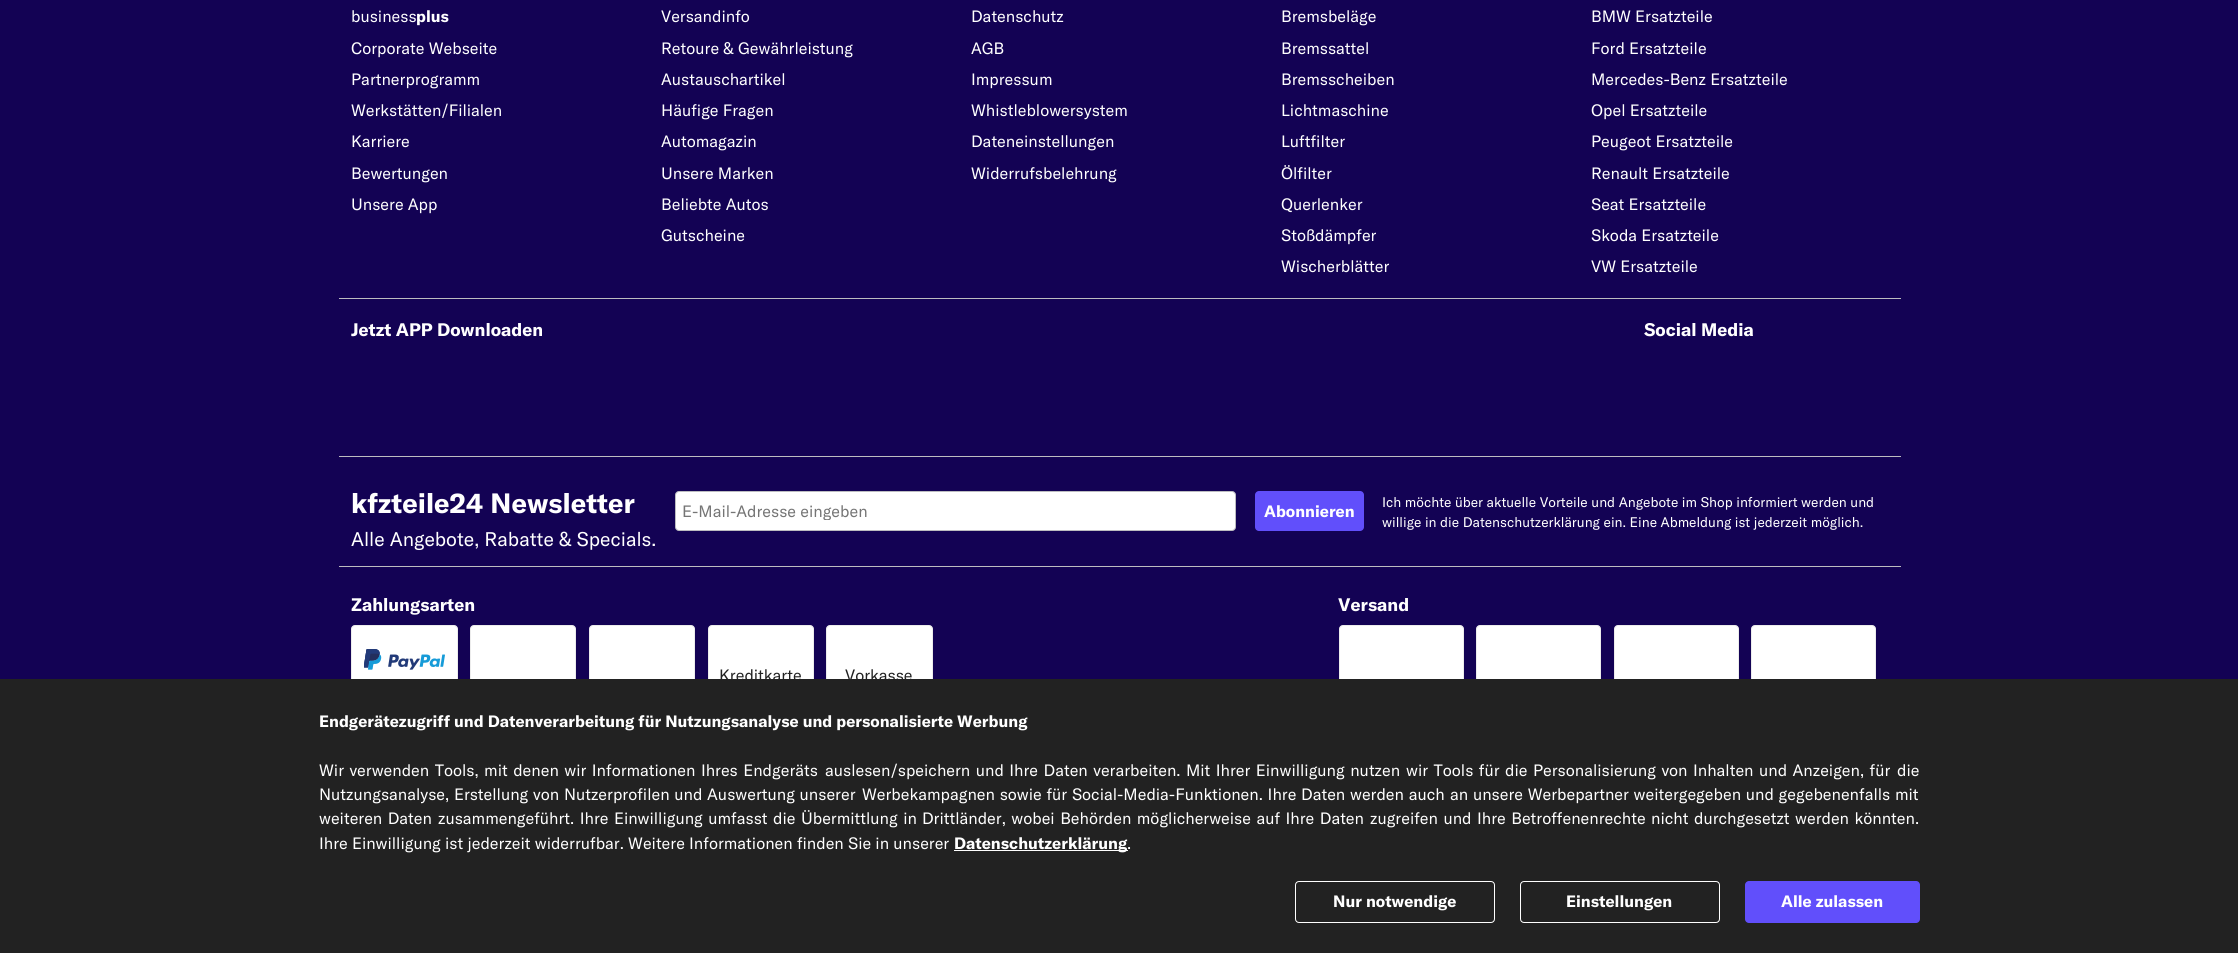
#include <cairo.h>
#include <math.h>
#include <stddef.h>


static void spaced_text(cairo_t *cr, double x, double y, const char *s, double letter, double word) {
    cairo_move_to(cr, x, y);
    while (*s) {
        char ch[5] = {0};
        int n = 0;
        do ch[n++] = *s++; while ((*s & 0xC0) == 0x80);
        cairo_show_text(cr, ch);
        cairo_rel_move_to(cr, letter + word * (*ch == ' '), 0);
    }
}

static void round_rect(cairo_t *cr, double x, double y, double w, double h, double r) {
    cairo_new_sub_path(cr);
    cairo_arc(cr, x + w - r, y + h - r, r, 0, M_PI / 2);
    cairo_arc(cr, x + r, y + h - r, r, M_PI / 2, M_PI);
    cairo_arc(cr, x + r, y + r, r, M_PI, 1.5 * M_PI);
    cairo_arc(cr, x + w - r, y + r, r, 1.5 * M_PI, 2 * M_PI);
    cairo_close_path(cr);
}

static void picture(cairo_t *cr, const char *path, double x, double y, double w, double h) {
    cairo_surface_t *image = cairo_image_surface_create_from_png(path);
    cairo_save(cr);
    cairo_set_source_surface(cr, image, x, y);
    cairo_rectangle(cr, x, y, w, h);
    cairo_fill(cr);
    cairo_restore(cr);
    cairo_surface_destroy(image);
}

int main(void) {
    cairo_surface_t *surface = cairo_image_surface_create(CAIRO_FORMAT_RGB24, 2238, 953);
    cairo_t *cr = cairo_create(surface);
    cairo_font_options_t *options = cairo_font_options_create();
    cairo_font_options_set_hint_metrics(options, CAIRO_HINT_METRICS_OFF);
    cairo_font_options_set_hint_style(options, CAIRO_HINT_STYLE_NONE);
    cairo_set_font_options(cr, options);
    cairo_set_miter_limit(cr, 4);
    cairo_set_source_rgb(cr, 0.075, 0.008, 0.329);
    cairo_paint(cr);
    cairo_select_font_face(cr, "GT America", CAIRO_FONT_SLANT_NORMAL, CAIRO_FONT_WEIGHT_NORMAL);
    cairo_set_font_size(cr, 16.25);
    cairo_set_source_rgb(cr, 1, 1, 1);
    cairo_move_to(cr, 351, 22);
    cairo_show_text(cr, "business");
    cairo_select_font_face(cr, "GT America", CAIRO_FONT_SLANT_NORMAL, CAIRO_FONT_WEIGHT_BOLD);
    cairo_move_to(cr, 416, 22);
    cairo_show_text(cr, "plus");
    cairo_select_font_face(cr, "GT America", CAIRO_FONT_SLANT_NORMAL, CAIRO_FONT_WEIGHT_NORMAL);
    cairo_move_to(cr, 351, 54);
    cairo_show_text(cr, "Corporate Webseite");
    cairo_move_to(cr, 351, 85);
    cairo_show_text(cr, "Partnerprogramm");
    cairo_move_to(cr, 351, 116);
    cairo_show_text(cr, "Werkstätten/Filialen");
    cairo_move_to(cr, 351, 147);
    cairo_show_text(cr, "Karriere");
    cairo_move_to(cr, 351, 179);
    cairo_show_text(cr, "Bewertungen");
    cairo_move_to(cr, 351, 210);
    cairo_show_text(cr, "Unsere App");
    cairo_move_to(cr, 661, 22);
    cairo_show_text(cr, "Versandinfo");
    cairo_move_to(cr, 661, 54);
    cairo_show_text(cr, "Retoure & Gewährleistung");
    cairo_move_to(cr, 661, 85);
    cairo_show_text(cr, "Austauschartikel");
    cairo_move_to(cr, 661, 116);
    cairo_show_text(cr, "Häufige Fragen");
    cairo_move_to(cr, 661, 147);
    cairo_show_text(cr, "Automagazin");
    cairo_move_to(cr, 661, 179);
    cairo_show_text(cr, "Unsere Marken");
    cairo_move_to(cr, 661, 210);
    cairo_show_text(cr, "Beliebte Autos");
    cairo_move_to(cr, 661, 241);
    cairo_show_text(cr, "Gutscheine");
    cairo_move_to(cr, 971, 22);
    cairo_show_text(cr, "Datenschutz");
    cairo_move_to(cr, 971, 54);
    cairo_show_text(cr, "AGB");
    cairo_move_to(cr, 971, 85);
    cairo_show_text(cr, "Impressum");
    cairo_move_to(cr, 971, 116);
    cairo_show_text(cr, "Whistleblowersystem");
    cairo_move_to(cr, 971, 147);
    cairo_show_text(cr, "Dateneinstellungen");
    cairo_move_to(cr, 971, 179);
    cairo_show_text(cr, "Widerrufsbelehrung");
    cairo_move_to(cr, 1281, 22);
    cairo_show_text(cr, "Bremsbeläge");
    cairo_move_to(cr, 1281, 54);
    cairo_show_text(cr, "Bremssattel");
    cairo_move_to(cr, 1281, 85);
    cairo_show_text(cr, "Bremsscheiben");
    cairo_move_to(cr, 1281, 116);
    cairo_show_text(cr, "Lichtmaschine");
    cairo_move_to(cr, 1281, 147);
    cairo_show_text(cr, "Luftfilter");
    cairo_move_to(cr, 1281, 179);
    cairo_show_text(cr, "Ölfilter");
    cairo_move_to(cr, 1281, 210);
    cairo_show_text(cr, "Querlenker");
    cairo_move_to(cr, 1281, 241);
    cairo_show_text(cr, "Stoßdämpfer");
    cairo_move_to(cr, 1281, 272);
    cairo_show_text(cr, "Wischerblätter");
    cairo_move_to(cr, 1591, 22);
    cairo_show_text(cr, "BMW Ersatzteile");
    cairo_move_to(cr, 1591, 54);
    cairo_show_text(cr, "Ford Ersatzteile");
    cairo_move_to(cr, 1591, 85);
    cairo_show_text(cr, "Mercedes-Benz Ersatzteile");
    cairo_move_to(cr, 1591, 116);
    cairo_show_text(cr, "Opel Ersatzteile");
    cairo_move_to(cr, 1591, 147);
    cairo_show_text(cr, "Peugeot Ersatzteile");
    cairo_move_to(cr, 1591, 179);
    cairo_show_text(cr, "Renault Ersatzteile");
    cairo_move_to(cr, 1591, 210);
    cairo_show_text(cr, "Seat Ersatzteile");
    cairo_move_to(cr, 1591, 241);
    cairo_show_text(cr, "Skoda Ersatzteile");
    cairo_move_to(cr, 1591, 272);
    cairo_show_text(cr, "VW Ersatzteile");
    cairo_set_source_rgb(cr, 0.737, 0.737, 0.753);
    cairo_rectangle(cr, 339, 298, 1562, 1);
    cairo_fill(cr);
    cairo_select_font_face(cr, "GT America", CAIRO_FONT_SLANT_NORMAL, CAIRO_FONT_WEIGHT_BOLD);
    cairo_set_font_size(cr, 17.9);
    cairo_set_source_rgb(cr, 1, 1, 1);
    cairo_move_to(cr, 351, 336);
    cairo_show_text(cr, "Jetzt APP Downloaden");
    cairo_move_to(cr, 1644, 336);
    cairo_show_text(cr, "Social Media");
    cairo_set_source_rgb(cr, 0.737, 0.737, 0.753);
    cairo_rectangle(cr, 339, 456, 1562, 1);
    cairo_fill(cr);
    cairo_set_font_size(cr, 27.6);
    cairo_set_source_rgb(cr, 1, 1, 1);
    cairo_move_to(cr, 351, 513);
    cairo_show_text(cr, "kfzteile24 Newsletter");
    cairo_select_font_face(cr, "GT America", CAIRO_FONT_SLANT_NORMAL, CAIRO_FONT_WEIGHT_NORMAL);
    cairo_set_font_size(cr, 19.5);
    cairo_move_to(cr, 351, 546);
    cairo_show_text(cr, "Alle Angebote, Rabatte & Specials.");
    round_rect(cr, 675.5, 491.5, 560, 39, 3.5);
    cairo_fill_preserve(cr);
    cairo_set_source_rgb(cr, 0.737, 0.737, 0.753);
    cairo_set_line_width(cr, 1);
    cairo_stroke(cr);
    cairo_save(cr);
    cairo_rectangle(cr, 683, 500, 546, 20);
    cairo_clip(cr);
    cairo_set_font_size(cr, 16.25);
    cairo_set_source_rgb(cr, 0.459, 0.459, 0.459);
    cairo_move_to(cr, 682, 517);
    cairo_show_text(cr, "E-Mail-Adresse eingeben");
    cairo_restore(cr);
    cairo_set_source_rgb(cr, 0.38, 0.31, 0.984);
    round_rect(cr, 1255, 491, 109, 40, 4);
    cairo_fill(cr);
    cairo_select_font_face(cr, "GT America", CAIRO_FONT_SLANT_NORMAL, CAIRO_FONT_WEIGHT_BOLD);
    cairo_set_font_size(cr, 16.25);
    cairo_set_source_rgb(cr, 1, 1, 1);
    cairo_move_to(cr, 1264, 517);
    cairo_show_text(cr, "Abonnieren");
    cairo_select_font_face(cr, "GT America", CAIRO_FONT_SLANT_NORMAL, CAIRO_FONT_WEIGHT_NORMAL);
    cairo_set_font_size(cr, 13.75);
    cairo_move_to(cr, 1382, 507);
    cairo_show_text(cr, "Ich möchte über aktuelle Vorteile und Angebote im Shop informiert werden und");
    cairo_move_to(cr, 1382, 527);
    cairo_show_text(cr, "willige in die Datenschutzerklärung ein. Eine Abmeldung ist jederzeit möglich.");
    cairo_set_source_rgb(cr, 0.737, 0.737, 0.753);
    cairo_rectangle(cr, 339, 566, 1562, 1);
    cairo_fill(cr);
    cairo_select_font_face(cr, "GT America", CAIRO_FONT_SLANT_NORMAL, CAIRO_FONT_WEIGHT_BOLD);
    cairo_set_font_size(cr, 17.9);
    cairo_set_source_rgb(cr, 1, 1, 1);
    cairo_move_to(cr, 351, 611);
    cairo_show_text(cr, "Zahlungsarten");
    round_rect(cr, 351.5, 625.5, 106, 68, 3.5);
    cairo_fill_preserve(cr);
    cairo_set_source_rgb(cr, 0.925, 0.925, 0.925);
    cairo_stroke(cr);
    picture(cr, "img1.png", 364, 649, 81, 21);
    cairo_set_source_rgb(cr, 1, 1, 1);
    round_rect(cr, 470.5, 625.5, 105, 68, 3.5);
    cairo_fill_preserve(cr);
    cairo_set_source_rgb(cr, 0.925, 0.925, 0.925);
    cairo_stroke(cr);
    cairo_set_source_rgb(cr, 1, 1, 1);
    round_rect(cr, 589.5, 625.5, 105, 68, 3.5);
    cairo_fill_preserve(cr);
    cairo_set_source_rgb(cr, 0.925, 0.925, 0.925);
    cairo_stroke(cr);
    cairo_set_source_rgb(cr, 1, 1, 1);
    round_rect(cr, 708.5, 625.5, 105, 68, 3.5);
    cairo_fill_preserve(cr);
    cairo_set_source_rgb(cr, 0.925, 0.925, 0.925);
    cairo_stroke(cr);
    cairo_select_font_face(cr, "GT America", CAIRO_FONT_SLANT_NORMAL, CAIRO_FONT_WEIGHT_NORMAL);
    cairo_set_font_size(cr, 16.25);
    cairo_set_source_rgb(cr, 0.133, 0.133, 0.133);
    cairo_move_to(cr, 719, 681);
    cairo_show_text(cr, "Kreditkarte");
    cairo_set_source_rgb(cr, 1, 1, 1);
    round_rect(cr, 826.5, 625.5, 106, 68, 3.5);
    cairo_fill_preserve(cr);
    cairo_set_source_rgb(cr, 0.925, 0.925, 0.925);
    cairo_stroke(cr);
    cairo_set_source_rgb(cr, 0.133, 0.133, 0.133);
    cairo_move_to(cr, 845, 681);
    cairo_show_text(cr, "Vorkasse");
    cairo_select_font_face(cr, "GT America", CAIRO_FONT_SLANT_NORMAL, CAIRO_FONT_WEIGHT_BOLD);
    cairo_set_font_size(cr, 17.9);
    cairo_set_source_rgb(cr, 1, 1, 1);
    cairo_move_to(cr, 1338, 611);
    cairo_show_text(cr, "Versand");
    round_rect(cr, 1339.5, 625.5, 124, 68, 3.5);
    cairo_fill_preserve(cr);
    cairo_set_source_rgb(cr, 0.925, 0.925, 0.925);
    cairo_stroke(cr);
    cairo_set_source_rgb(cr, 1, 1, 1);
    round_rect(cr, 1476.5, 625.5, 124, 68, 3.5);
    cairo_fill_preserve(cr);
    cairo_set_source_rgb(cr, 0.925, 0.925, 0.925);
    cairo_stroke(cr);
    cairo_set_source_rgb(cr, 1, 1, 1);
    round_rect(cr, 1614.5, 625.5, 124, 68, 3.5);
    cairo_fill_preserve(cr);
    cairo_set_source_rgb(cr, 0.925, 0.925, 0.925);
    cairo_stroke(cr);
    cairo_set_source_rgb(cr, 1, 1, 1);
    round_rect(cr, 1751.5, 625.5, 124, 68, 3.5);
    cairo_fill_preserve(cr);
    cairo_set_source_rgb(cr, 0.925, 0.925, 0.925);
    cairo_stroke(cr);
    cairo_set_source_rgb(cr, 0.133, 0.133, 0.133);
    cairo_rectangle(cr, 0, 679, 2238, 274);
    cairo_fill(cr);
    cairo_set_font_size(cr, 16.25);
    cairo_set_source_rgb(cr, 1, 1, 1);
    cairo_move_to(cr, 319, 727);
    cairo_show_text(cr, "Endgerätezugriff und Datenverarbeitung für Nutzungsanalyse und personalisierte Werbung");
    cairo_select_font_face(cr, "GT America", CAIRO_FONT_SLANT_NORMAL, CAIRO_FONT_WEIGHT_NORMAL);
    spaced_text(cr, 319, 776, "Wir verwenden Tools, mit denen wir Informationen Ihres Endgeräts", 0, 1.25);
    spaced_text(cr, 825, 776, "auslesen/speichern und Ihre Daten verarbeiten. Mit Ihrer Einwilligung nutzen", 0, 1.25);
    spaced_text(cr, 1406, 776, "wir Tools für die Personalisierung von Inhalten und Anzeigen, für", 0, 1.25);
    cairo_move_to(cr, 1897, 776);
    cairo_show_text(cr, "die");
    spaced_text(cr, 319, 800, "Nutzungsanalyse, Erstellung von Nutzerprofilen und Auswertung unserer", 0, 0.5);
    spaced_text(cr, 862, 800, "Werbekampagnen sowie für Social-Media-Funktionen. Ihre Daten werden auch", 0, 0.5);
    spaced_text(cr, 1450, 800, "an unsere Werbepartner weitergegeben und gegebenenfalls mit", 0, 0.5);
    spaced_text(cr, 319, 824, "weiteren Daten", 0, 1.25);
    spaced_text(cr, 438, 824, "zusammengeführt. Ihre Einwilligung umfasst die Übermittlung in", 0, 1.25);
    spaced_text(cr, 922, 824, "Drittländer, wobei Behörden möglicherweise auf Ihre Daten", 0, 1.25);
    spaced_text(cr, 1370, 824, "zugreifen und Ihre Betroffenenrechte nicht durchgesetzt werden könnten.", 0, 1.25);
    cairo_move_to(cr, 319, 849);
    cairo_show_text(cr, "Ihre Einwilligung ist jederzeit widerrufbar. Weitere Informationen finden Sie in unserer");
    cairo_rectangle(cr, 954, 850, 174, 1);
    cairo_fill(cr);
    cairo_select_font_face(cr, "GT America", CAIRO_FONT_SLANT_NORMAL, CAIRO_FONT_WEIGHT_BOLD);
    cairo_move_to(cr, 954, 849);
    cairo_show_text(cr, "Datenschutzerklärung");
    cairo_select_font_face(cr, "GT America", CAIRO_FONT_SLANT_NORMAL, CAIRO_FONT_WEIGHT_NORMAL);
    cairo_move_to(cr, 1127, 849);
    cairo_show_text(cr, ".");
    round_rect(cr, 1295.5, 881.5, 199, 41, 3.5);
    cairo_stroke(cr);
    cairo_select_font_face(cr, "GT America", CAIRO_FONT_SLANT_NORMAL, CAIRO_FONT_WEIGHT_BOLD);
    cairo_move_to(cr, 1333, 907);
    cairo_show_text(cr, "Nur notwendige");
    round_rect(cr, 1520.5, 881.5, 199, 41, 3.5);
    cairo_stroke(cr);
    cairo_move_to(cr, 1566, 907);
    cairo_show_text(cr, "Einstellungen");
    cairo_set_source_rgb(cr, 0.38, 0.31, 0.984);
    round_rect(cr, 1745, 881, 175, 42, 4);
    cairo_fill(cr);
    cairo_set_source_rgb(cr, 1, 1, 1);
    cairo_move_to(cr, 1781, 907);
    cairo_show_text(cr, "Alle zulassen");
    cairo_surface_write_to_png(surface, "page.png");
    cairo_font_options_destroy(options);
    cairo_destroy(cr);
    cairo_surface_destroy(surface);
    return 0;
}
